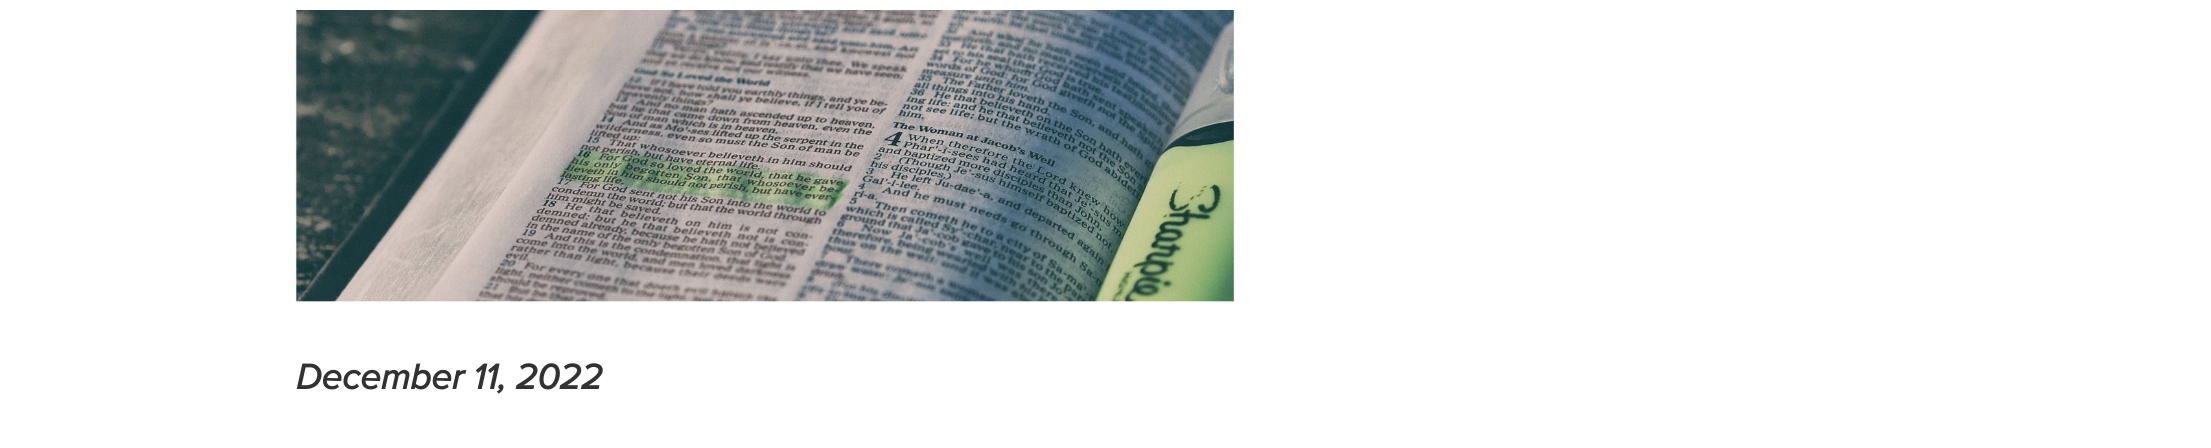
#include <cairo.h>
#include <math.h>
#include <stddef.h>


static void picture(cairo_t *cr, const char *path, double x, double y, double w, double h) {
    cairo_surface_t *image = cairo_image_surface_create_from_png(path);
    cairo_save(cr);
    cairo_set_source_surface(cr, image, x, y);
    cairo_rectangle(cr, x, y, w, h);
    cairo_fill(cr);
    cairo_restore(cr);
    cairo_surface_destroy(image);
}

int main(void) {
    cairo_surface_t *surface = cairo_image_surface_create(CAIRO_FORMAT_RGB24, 2211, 448);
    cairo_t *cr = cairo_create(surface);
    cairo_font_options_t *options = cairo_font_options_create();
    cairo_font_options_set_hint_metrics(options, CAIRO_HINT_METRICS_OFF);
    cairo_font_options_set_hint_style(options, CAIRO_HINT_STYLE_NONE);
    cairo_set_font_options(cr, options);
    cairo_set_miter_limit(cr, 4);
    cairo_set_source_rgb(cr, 1, 1, 1);
    cairo_paint(cr);
    picture(cr, "img1.png", 295, 10, 939, 292);
    cairo_select_font_face(cr, "Proxima Nova", CAIRO_FONT_SLANT_ITALIC, CAIRO_FONT_WEIGHT_BOLD);
    cairo_set_font_size(cr, 36.5);
    cairo_set_source_rgb(cr, 0.196, 0.196, 0.2);
    cairo_move_to(cr, 296, 389);
    cairo_show_text(cr, "December 11, 2022");
    cairo_surface_write_to_png(surface, "page.png");
    cairo_font_options_destroy(options);
    cairo_destroy(cr);
    cairo_surface_destroy(surface);
    return 0;
}
